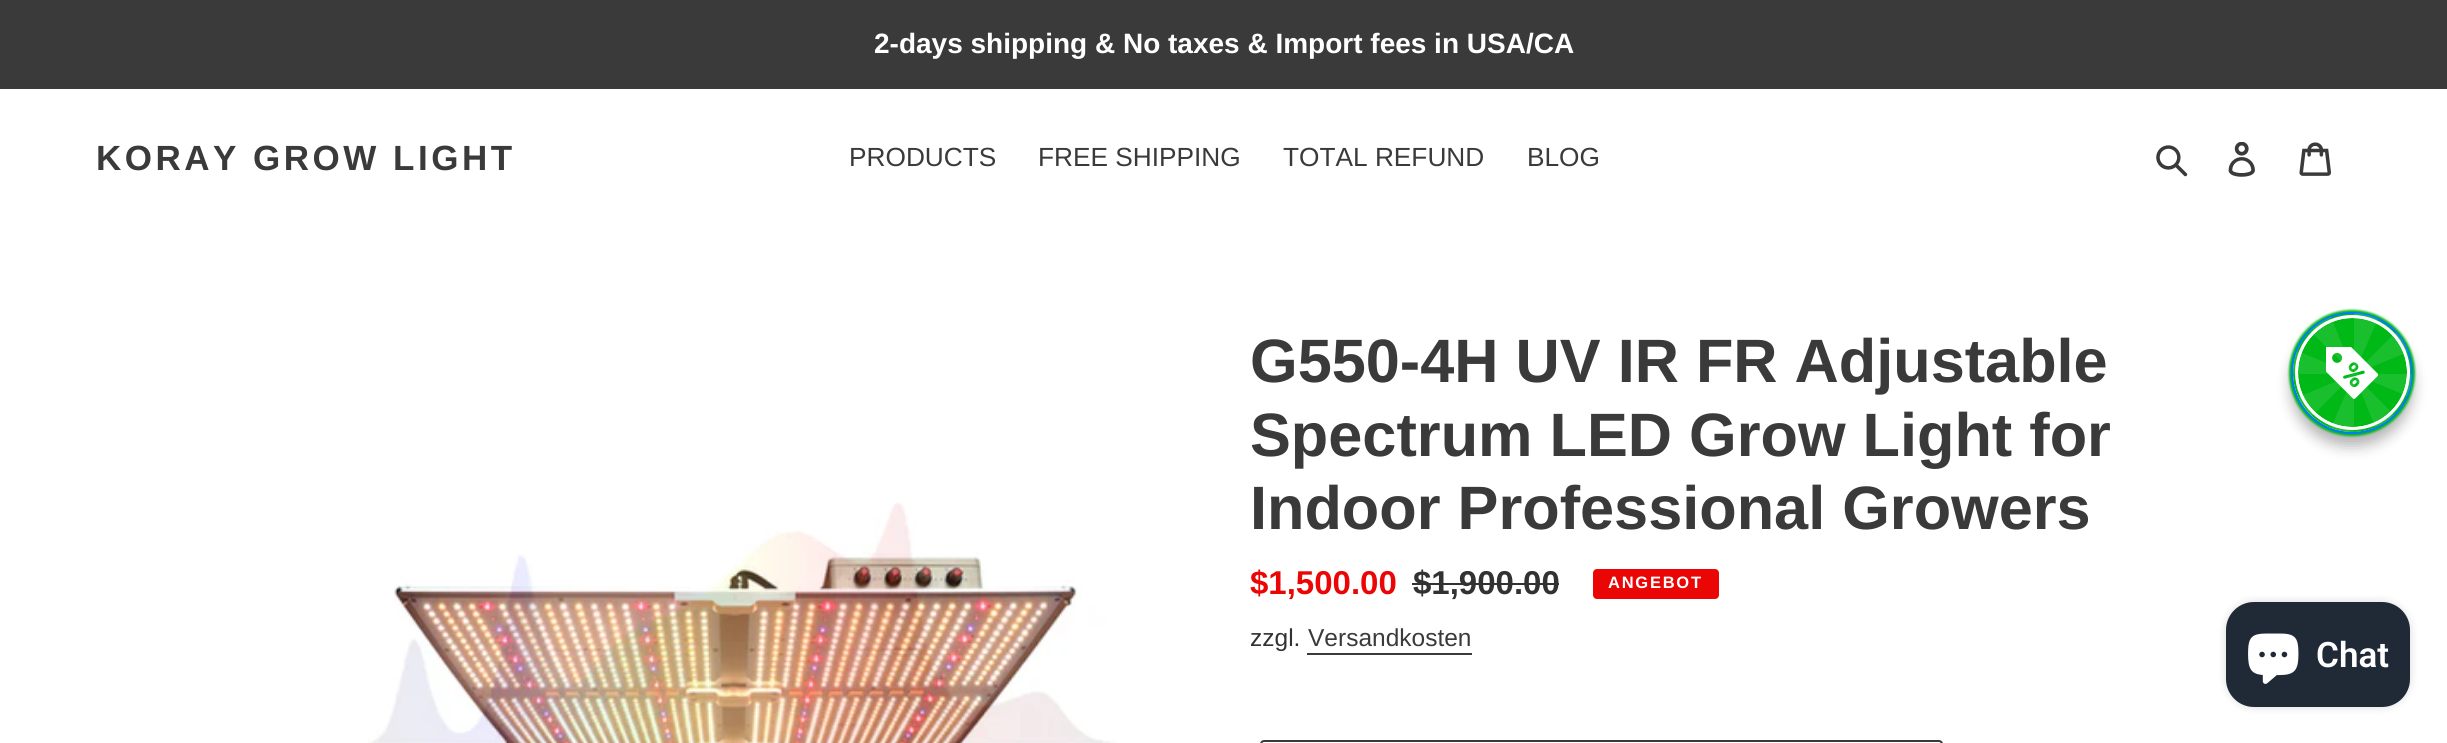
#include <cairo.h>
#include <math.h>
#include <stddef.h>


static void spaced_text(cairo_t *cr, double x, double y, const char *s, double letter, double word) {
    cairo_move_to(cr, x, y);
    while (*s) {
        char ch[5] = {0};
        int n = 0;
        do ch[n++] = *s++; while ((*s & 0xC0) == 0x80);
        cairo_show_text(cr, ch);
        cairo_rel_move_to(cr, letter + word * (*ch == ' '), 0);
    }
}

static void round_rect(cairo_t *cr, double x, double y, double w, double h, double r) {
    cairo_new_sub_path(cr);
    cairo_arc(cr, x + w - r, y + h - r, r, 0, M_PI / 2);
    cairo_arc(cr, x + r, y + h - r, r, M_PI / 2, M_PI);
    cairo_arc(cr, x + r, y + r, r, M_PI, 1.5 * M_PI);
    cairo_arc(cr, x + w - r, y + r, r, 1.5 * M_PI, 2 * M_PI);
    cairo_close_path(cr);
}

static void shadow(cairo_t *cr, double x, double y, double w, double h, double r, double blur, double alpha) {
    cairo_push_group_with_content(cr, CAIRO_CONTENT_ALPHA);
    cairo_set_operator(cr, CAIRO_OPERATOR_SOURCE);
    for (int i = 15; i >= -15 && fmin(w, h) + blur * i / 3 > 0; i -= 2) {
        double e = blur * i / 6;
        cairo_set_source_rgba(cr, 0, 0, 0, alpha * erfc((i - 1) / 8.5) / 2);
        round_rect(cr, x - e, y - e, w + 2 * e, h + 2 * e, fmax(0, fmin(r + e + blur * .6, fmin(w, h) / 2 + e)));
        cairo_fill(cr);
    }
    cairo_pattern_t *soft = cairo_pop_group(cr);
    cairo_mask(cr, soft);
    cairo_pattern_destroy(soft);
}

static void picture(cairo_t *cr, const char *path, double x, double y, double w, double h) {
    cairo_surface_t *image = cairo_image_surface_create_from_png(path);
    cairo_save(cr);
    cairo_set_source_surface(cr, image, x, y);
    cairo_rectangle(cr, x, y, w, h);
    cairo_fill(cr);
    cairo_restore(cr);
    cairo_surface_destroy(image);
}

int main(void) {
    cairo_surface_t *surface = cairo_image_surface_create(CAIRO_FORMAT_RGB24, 2447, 743);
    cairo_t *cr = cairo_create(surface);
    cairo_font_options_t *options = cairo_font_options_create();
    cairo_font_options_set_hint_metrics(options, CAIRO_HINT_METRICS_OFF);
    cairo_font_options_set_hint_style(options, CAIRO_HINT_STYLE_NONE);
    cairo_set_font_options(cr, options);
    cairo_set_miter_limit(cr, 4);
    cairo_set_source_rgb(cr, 1, 1, 1);
    cairo_paint(cr);
    cairo_set_source_rgb(cr, 0.227, 0.227, 0.227);
    cairo_rectangle(cr, 0, 0, 2447, 89);
    cairo_fill(cr);
    cairo_select_font_face(cr, "Liberation Sans", CAIRO_FONT_SLANT_NORMAL, CAIRO_FONT_WEIGHT_BOLD);
    cairo_set_font_size(cr, 28);
    cairo_set_source_rgb(cr, 1, 1, 1);
    cairo_move_to(cr, 874, 53);
    cairo_show_text(cr, "2-days shipping & No taxes & Import fees in USA/CA");
    cairo_set_font_size(cr, 35);
    cairo_set_source_rgb(cr, 0.227, 0.227, 0.227);
    spaced_text(cr, 96, 170, "KORAY GROW LIGHT", 3.5, 0);
    cairo_select_font_face(cr, "Liberation Sans", CAIRO_FONT_SLANT_NORMAL, CAIRO_FONT_WEIGHT_NORMAL);
    cairo_set_font_size(cr, 26.25);
    cairo_move_to(cr, 849, 166);
    cairo_show_text(cr, "PRODUCTS");
    cairo_move_to(cr, 1038, 166);
    cairo_show_text(cr, "FREE SHIPPING");
    cairo_move_to(cr, 1283, 166);
    cairo_show_text(cr, "TOTAL REFUND");
    cairo_move_to(cr, 1527, 166);
    cairo_show_text(cr, "BLOG");
    picture(cr, "img1.png", 2156, 145, 32, 32);
    picture(cr, "img2.png", 2228, 142, 27, 35);
    picture(cr, "img3.png", 2299, 142, 32, 34);
    picture(cr, "img4.png", 368, 502, 748, 241);
    cairo_select_font_face(cr, "Liberation Sans", CAIRO_FONT_SLANT_NORMAL, CAIRO_FONT_WEIGHT_BOLD);
    cairo_set_font_size(cr, 61.25);
    cairo_move_to(cr, 1250, 382);
    cairo_show_text(cr, "G550-4H UV IR FR Adjustable");
    cairo_move_to(cr, 1250, 456);
    cairo_show_text(cr, "Spectrum LED Grow Light for");
    cairo_move_to(cr, 1250, 529);
    cairo_show_text(cr, "Indoor Professional Growers");
    cairo_set_font_size(cr, 33);
    cairo_set_source_rgb(cr, 0.918, 0.024, 0.024);
    cairo_move_to(cr, 1250, 594);
    cairo_show_text(cr, "$1,500.00");
    cairo_set_source_rgb(cr, 0.2, 0.196, 0.196);
    cairo_move_to(cr, 1413, 594);
    cairo_show_text(cr, "$1,900.00");
    cairo_rectangle(cr, 1412, 583, 147, 2);
    cairo_fill(cr);
    cairo_set_source_rgb(cr, 0.918, 0.024, 0.024);
    round_rect(cr, 1594, 570, 124, 28, 3);
    cairo_fill_preserve(cr);
    cairo_stroke(cr);
    cairo_set_font_size(cr, 16.5);
    cairo_set_source_rgb(cr, 1, 1, 1);
    spaced_text(cr, 1608, 588, "ANGEBOT", 1.75, 0);
    cairo_select_font_face(cr, "Liberation Sans", CAIRO_FONT_SLANT_NORMAL, CAIRO_FONT_WEIGHT_NORMAL);
    cairo_set_font_size(cr, 24.5);
    cairo_set_source_rgb(cr, 0.2, 0.196, 0.196);
    cairo_move_to(cr, 1250, 646);
    cairo_show_text(cr, "zzgl.");
    cairo_set_source_rgb(cr, 0.227, 0.227, 0.227);
    cairo_move_to(cr, 1308, 646);
    cairo_show_text(cr, "Versandkosten");
    cairo_rectangle(cr, 1307, 653, 165, 2);
    cairo_fill(cr);
    round_rect(cr, 1261, 741, 681, 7, 3);
    cairo_stroke(cr);
    cairo_set_source_rgb(cr, 0, 0, 0);
    shadow(cr, 2291, 324, 122, 122, 61, 7, 0.3);
    cairo_set_source_rgb(cr, 0, 0.722, 0.086);
    shadow(cr, 2289, 310, 126, 126, 63, 1, 1);
    cairo_set_source_rgb(cr, 0, 0.722, 0.086);
    cairo_arc(cr, 2352, 373, 61, 0, 2 * M_PI);
    cairo_fill(cr);
    cairo_arc(cr, 2352.5, 372.5, 57, 0, 2 * M_PI);
    cairo_set_source_rgb(cr, 1, 1, 1);
    cairo_set_line_width(cr, 5);
    cairo_stroke(cr);
    cairo_arc(cr, 2352.5, 372.5, 57, 0, 2 * M_PI);
    cairo_stroke(cr);
    cairo_arc(cr, 2352.5, 372.5, 58.5, 0, 2 * M_PI);
    cairo_set_source_rgb(cr, 0, 0.722, 0.086);
    cairo_set_line_width(cr, 2);
    cairo_stroke(cr);
    cairo_arc(cr, 2352, 373, 60, 0, 2 * M_PI);
    cairo_set_source_rgb(cr, 0, 0.482, 1);
    cairo_stroke(cr);
    cairo_set_source_rgba(cr, 1, 1, 1, 0.1);
    cairo_new_path(cr);
    cairo_move_to(cr, 2331, 317);
    cairo_curve_to(cr, 2323, 320, 2316, 325, 2310, 331);
    cairo_line_to(cr, 2354, 374);
    cairo_line_to(cr, 2297, 351);
    cairo_curve_to(cr, 2294, 358, 2293, 366, 2293, 374);
    cairo_line_to(cr, 2354, 374);
    cairo_line_to(cr, 2298, 397);
    cairo_curve_to(cr, 2301, 404, 2306, 411, 2312, 416);
    cairo_line_to(cr, 2354, 374);
    cairo_line_to(cr, 2331, 428);
    cairo_curve_to(cr, 2339, 431, 2346, 432, 2354, 432);
    cairo_line_to(cr, 2354, 374);
    cairo_line_to(cr, 2375, 427);
    cairo_curve_to(cr, 2383, 424, 2389, 420, 2394, 415);
    cairo_line_to(cr, 2354, 374);
    cairo_line_to(cr, 2407, 396);
    cairo_curve_to(cr, 2410, 390, 2412, 382, 2412, 374);
    cairo_line_to(cr, 2354, 374);
    cairo_line_to(cr, 2408, 352);
    cairo_curve_to(cr, 2406, 345, 2401, 338, 2396, 332);
    cairo_line_to(cr, 2354, 374);
    cairo_line_to(cr, 2378, 319);
    cairo_curve_to(cr, 2370, 315, 2362, 313, 2354, 313);
    cairo_line_to(cr, 2354, 374);
    cairo_close_path(cr);
    cairo_fill(cr);
    picture(cr, "img5.png", 2326, 347, 52, 52);
    cairo_set_source_rgb(cr, 0, 0, 0);
    shadow(cr, 2226, 602, 184, 105, 28, 4.5, 0.15);
    cairo_set_source_rgb(cr, 0.125, 0.165, 0.212);
    round_rect(cr, 2226, 602, 184, 105, 28);
    cairo_fill(cr);
    picture(cr, "img6.png", 2248, 633, 51, 51);
    cairo_select_font_face(cr, "Roboto SemiBold", CAIRO_FONT_SLANT_NORMAL, CAIRO_FONT_WEIGHT_NORMAL);
    cairo_set_font_size(cr, 35);
    cairo_set_source_rgb(cr, 1, 1, 1);
    cairo_move_to(cr, 2316, 667);
    cairo_show_text(cr, "Chat");
    cairo_surface_write_to_png(surface, "page.png");
    cairo_font_options_destroy(options);
    cairo_destroy(cr);
    cairo_surface_destroy(surface);
    return 0;
}
